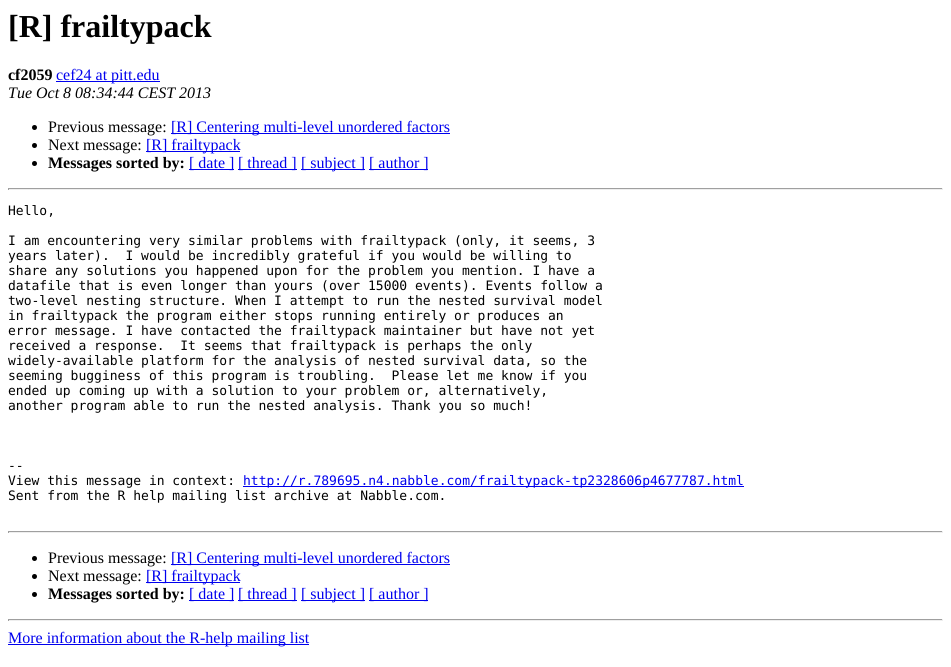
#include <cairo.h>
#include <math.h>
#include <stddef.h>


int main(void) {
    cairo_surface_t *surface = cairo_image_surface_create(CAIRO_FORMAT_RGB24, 951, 667);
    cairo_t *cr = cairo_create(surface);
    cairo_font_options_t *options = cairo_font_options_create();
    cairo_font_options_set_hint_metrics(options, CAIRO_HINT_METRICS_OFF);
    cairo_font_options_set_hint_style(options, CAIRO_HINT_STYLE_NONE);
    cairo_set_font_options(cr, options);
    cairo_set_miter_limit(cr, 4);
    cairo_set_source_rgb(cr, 1, 1, 1);
    cairo_paint(cr);
    cairo_select_font_face(cr, "Liberation Serif", CAIRO_FONT_SLANT_NORMAL, CAIRO_FONT_WEIGHT_BOLD);
    cairo_set_font_size(cr, 32);
    cairo_set_source_rgb(cr, 0, 0, 0);
    cairo_move_to(cr, 8, 37);
    cairo_show_text(cr, "[R] frailtypack");
    cairo_set_font_size(cr, 16);
    cairo_move_to(cr, 8, 80);
    cairo_show_text(cr, "cf2059");
    cairo_set_source_rgb(cr, 0, 0, 0.933);
    cairo_rectangle(cr, 56, 81, 104, 1);
    cairo_fill(cr);
    cairo_select_font_face(cr, "Liberation Serif", CAIRO_FONT_SLANT_NORMAL, CAIRO_FONT_WEIGHT_NORMAL);
    cairo_move_to(cr, 56, 80);
    cairo_show_text(cr, "cef24 at pitt.edu");
    cairo_select_font_face(cr, "Liberation Serif", CAIRO_FONT_SLANT_ITALIC, CAIRO_FONT_WEIGHT_NORMAL);
    cairo_set_source_rgb(cr, 0, 0, 0);
    cairo_move_to(cr, 8, 98);
    cairo_show_text(cr, "Tue Oct 8 08:34:44 CEST 2013");
    cairo_new_path(cr);
    cairo_arc(cr, 34.5, 127.5, 2.5, 0, 2 * M_PI);
    cairo_fill(cr);
    cairo_select_font_face(cr, "Liberation Serif", CAIRO_FONT_SLANT_NORMAL, CAIRO_FONT_WEIGHT_NORMAL);
    cairo_move_to(cr, 48, 132);
    cairo_show_text(cr, "Previous message:");
    cairo_set_source_rgb(cr, 0, 0, 0.933);
    cairo_rectangle(cr, 171, 133, 279, 1);
    cairo_fill(cr);
    cairo_move_to(cr, 171, 132);
    cairo_show_text(cr, "[R] Centering multi-level unordered factors");
    cairo_set_source_rgb(cr, 0, 0, 0);
    cairo_new_path(cr);
    cairo_arc(cr, 34.5, 145.5, 2.5, 0, 2 * M_PI);
    cairo_fill(cr);
    cairo_move_to(cr, 48, 150);
    cairo_show_text(cr, "Next message:");
    cairo_set_source_rgb(cr, 0, 0, 0.933);
    cairo_rectangle(cr, 146, 151, 94, 1);
    cairo_fill(cr);
    cairo_move_to(cr, 146, 150);
    cairo_show_text(cr, "[R] frailtypack");
    cairo_set_source_rgb(cr, 0, 0, 0);
    cairo_new_path(cr);
    cairo_arc(cr, 34.5, 163.5, 2.5, 0, 2 * M_PI);
    cairo_fill(cr);
    cairo_select_font_face(cr, "Liberation Serif", CAIRO_FONT_SLANT_NORMAL, CAIRO_FONT_WEIGHT_BOLD);
    cairo_move_to(cr, 48, 168);
    cairo_show_text(cr, "Messages sorted by:");
    cairo_set_source_rgb(cr, 0, 0, 0.933);
    cairo_rectangle(cr, 189, 169, 45, 1);
    cairo_fill(cr);
    cairo_select_font_face(cr, "Liberation Serif", CAIRO_FONT_SLANT_NORMAL, CAIRO_FONT_WEIGHT_NORMAL);
    cairo_move_to(cr, 189, 168);
    cairo_show_text(cr, "[ date ]");
    cairo_rectangle(cr, 238, 169, 59, 1);
    cairo_fill(cr);
    cairo_move_to(cr, 238, 168);
    cairo_show_text(cr, "[ thread ]");
    cairo_rectangle(cr, 301, 169, 64, 1);
    cairo_fill(cr);
    cairo_move_to(cr, 301, 168);
    cairo_show_text(cr, "[ subject ]");
    cairo_rectangle(cr, 369, 169, 59, 1);
    cairo_fill(cr);
    cairo_move_to(cr, 369, 168);
    cairo_show_text(cr, "[ author ]");
    cairo_set_source_rgb(cr, 0.624, 0.624, 0.624);
    cairo_rectangle(cr, 8, 188, 935, 1);
    cairo_fill(cr);
    cairo_set_source_rgb(cr, 0.933, 0.933, 0.933);
    cairo_rectangle(cr, 942, 188, 1, 2);
    cairo_fill(cr);
    cairo_rectangle(cr, 8, 189, 935, 1);
    cairo_fill(cr);
    cairo_set_source_rgb(cr, 0.624, 0.624, 0.624);
    cairo_rectangle(cr, 8, 188, 1, 2);
    cairo_fill(cr);
    cairo_select_font_face(cr, "DejaVu Sans Mono", CAIRO_FONT_SLANT_NORMAL, CAIRO_FONT_WEIGHT_NORMAL);
    cairo_set_font_size(cr, 13);
    cairo_set_source_rgb(cr, 0, 0, 0);
    cairo_move_to(cr, 8, 215);
    cairo_show_text(cr, "Hello,");
    cairo_move_to(cr, 8, 245);
    cairo_show_text(cr, "I am encountering very similar problems with frailtypack (only, it seems, 3");
    cairo_move_to(cr, 8, 260);
    cairo_show_text(cr, "years later).  I would be incredibly grateful if you would be willing to");
    cairo_move_to(cr, 8, 275);
    cairo_show_text(cr, "share any solutions you happened upon for the problem you mention. I have a");
    cairo_move_to(cr, 8, 290);
    cairo_show_text(cr, "datafile that is even longer than yours (over 15000 events). Events follow a");
    cairo_move_to(cr, 8, 305);
    cairo_show_text(cr, "two-level nesting structure. When I attempt to run the nested survival model");
    cairo_move_to(cr, 8, 320);
    cairo_show_text(cr, "in frailtypack the program either stops running entirely or produces an");
    cairo_move_to(cr, 8, 335);
    cairo_show_text(cr, "error message. I have contacted the frailtypack maintainer but have not yet");
    cairo_move_to(cr, 8, 350);
    cairo_show_text(cr, "received a response.  It seems that frailtypack is perhaps the only");
    cairo_move_to(cr, 8, 365);
    cairo_show_text(cr, "widely-available platform for the analysis of nested survival data, so the");
    cairo_move_to(cr, 8, 380);
    cairo_show_text(cr, "seeming bugginess of this program is troubling.  Please let me know if you");
    cairo_move_to(cr, 8, 395);
    cairo_show_text(cr, "ended up coming up with a solution to your problem or, alternatively,");
    cairo_move_to(cr, 8, 410);
    cairo_show_text(cr, "another program able to run the nested analysis. Thank you so much!");
    cairo_move_to(cr, 8, 470);
    cairo_show_text(cr, "--");
    cairo_move_to(cr, 8, 485);
    cairo_show_text(cr, "View this message in context:");
    cairo_set_source_rgb(cr, 0, 0, 0.933);
    cairo_rectangle(cr, 243, 486, 501, 1);
    cairo_fill(cr);
    cairo_move_to(cr, 243, 485);
    cairo_show_text(cr, "http://r.789695.n4.nabble.com/frailtypack-tp2328606p4677787.html");
    cairo_set_source_rgb(cr, 0, 0, 0);
    cairo_move_to(cr, 8, 500);
    cairo_show_text(cr, "Sent from the R help mailing list archive at Nabble.com.");
    cairo_set_source_rgb(cr, 0.624, 0.624, 0.624);
    cairo_rectangle(cr, 8, 531, 935, 1);
    cairo_fill(cr);
    cairo_set_source_rgb(cr, 0.933, 0.933, 0.933);
    cairo_rectangle(cr, 942, 531, 1, 2);
    cairo_fill(cr);
    cairo_rectangle(cr, 8, 532, 935, 1);
    cairo_fill(cr);
    cairo_set_source_rgb(cr, 0.624, 0.624, 0.624);
    cairo_rectangle(cr, 8, 531, 1, 2);
    cairo_fill(cr);
    cairo_set_source_rgb(cr, 0, 0, 0);
    cairo_arc(cr, 34.5, 558.5, 2.5, 0, 2 * M_PI);
    cairo_fill(cr);
    cairo_select_font_face(cr, "Liberation Serif", CAIRO_FONT_SLANT_NORMAL, CAIRO_FONT_WEIGHT_NORMAL);
    cairo_set_font_size(cr, 16);
    cairo_move_to(cr, 48, 563);
    cairo_show_text(cr, "Previous message:");
    cairo_set_source_rgb(cr, 0, 0, 0.933);
    cairo_rectangle(cr, 171, 564, 279, 1);
    cairo_fill(cr);
    cairo_move_to(cr, 171, 563);
    cairo_show_text(cr, "[R] Centering multi-level unordered factors");
    cairo_set_source_rgb(cr, 0, 0, 0);
    cairo_new_path(cr);
    cairo_arc(cr, 34.5, 576.5, 2.5, 0, 2 * M_PI);
    cairo_fill(cr);
    cairo_move_to(cr, 48, 581);
    cairo_show_text(cr, "Next message:");
    cairo_set_source_rgb(cr, 0, 0, 0.933);
    cairo_rectangle(cr, 146, 582, 94, 1);
    cairo_fill(cr);
    cairo_move_to(cr, 146, 581);
    cairo_show_text(cr, "[R] frailtypack");
    cairo_set_source_rgb(cr, 0, 0, 0);
    cairo_new_path(cr);
    cairo_arc(cr, 34.5, 594.5, 2.5, 0, 2 * M_PI);
    cairo_fill(cr);
    cairo_select_font_face(cr, "Liberation Serif", CAIRO_FONT_SLANT_NORMAL, CAIRO_FONT_WEIGHT_BOLD);
    cairo_move_to(cr, 48, 599);
    cairo_show_text(cr, "Messages sorted by:");
    cairo_set_source_rgb(cr, 0, 0, 0.933);
    cairo_rectangle(cr, 189, 600, 45, 1);
    cairo_fill(cr);
    cairo_select_font_face(cr, "Liberation Serif", CAIRO_FONT_SLANT_NORMAL, CAIRO_FONT_WEIGHT_NORMAL);
    cairo_move_to(cr, 189, 599);
    cairo_show_text(cr, "[ date ]");
    cairo_rectangle(cr, 238, 600, 59, 1);
    cairo_fill(cr);
    cairo_move_to(cr, 238, 599);
    cairo_show_text(cr, "[ thread ]");
    cairo_rectangle(cr, 301, 600, 64, 1);
    cairo_fill(cr);
    cairo_move_to(cr, 301, 599);
    cairo_show_text(cr, "[ subject ]");
    cairo_rectangle(cr, 369, 600, 59, 1);
    cairo_fill(cr);
    cairo_move_to(cr, 369, 599);
    cairo_show_text(cr, "[ author ]");
    cairo_set_source_rgb(cr, 0.624, 0.624, 0.624);
    cairo_rectangle(cr, 8, 619, 935, 1);
    cairo_fill(cr);
    cairo_set_source_rgb(cr, 0.933, 0.933, 0.933);
    cairo_rectangle(cr, 942, 619, 1, 2);
    cairo_fill(cr);
    cairo_rectangle(cr, 8, 620, 935, 1);
    cairo_fill(cr);
    cairo_set_source_rgb(cr, 0.624, 0.624, 0.624);
    cairo_rectangle(cr, 8, 619, 1, 2);
    cairo_fill(cr);
    cairo_set_source_rgb(cr, 0, 0, 0.933);
    cairo_rectangle(cr, 8, 644, 301, 1);
    cairo_fill(cr);
    cairo_move_to(cr, 8, 643);
    cairo_show_text(cr, "More information about the R-help mailing list");
    cairo_surface_write_to_png(surface, "page.png");
    cairo_font_options_destroy(options);
    cairo_destroy(cr);
    cairo_surface_destroy(surface);
    return 0;
}
